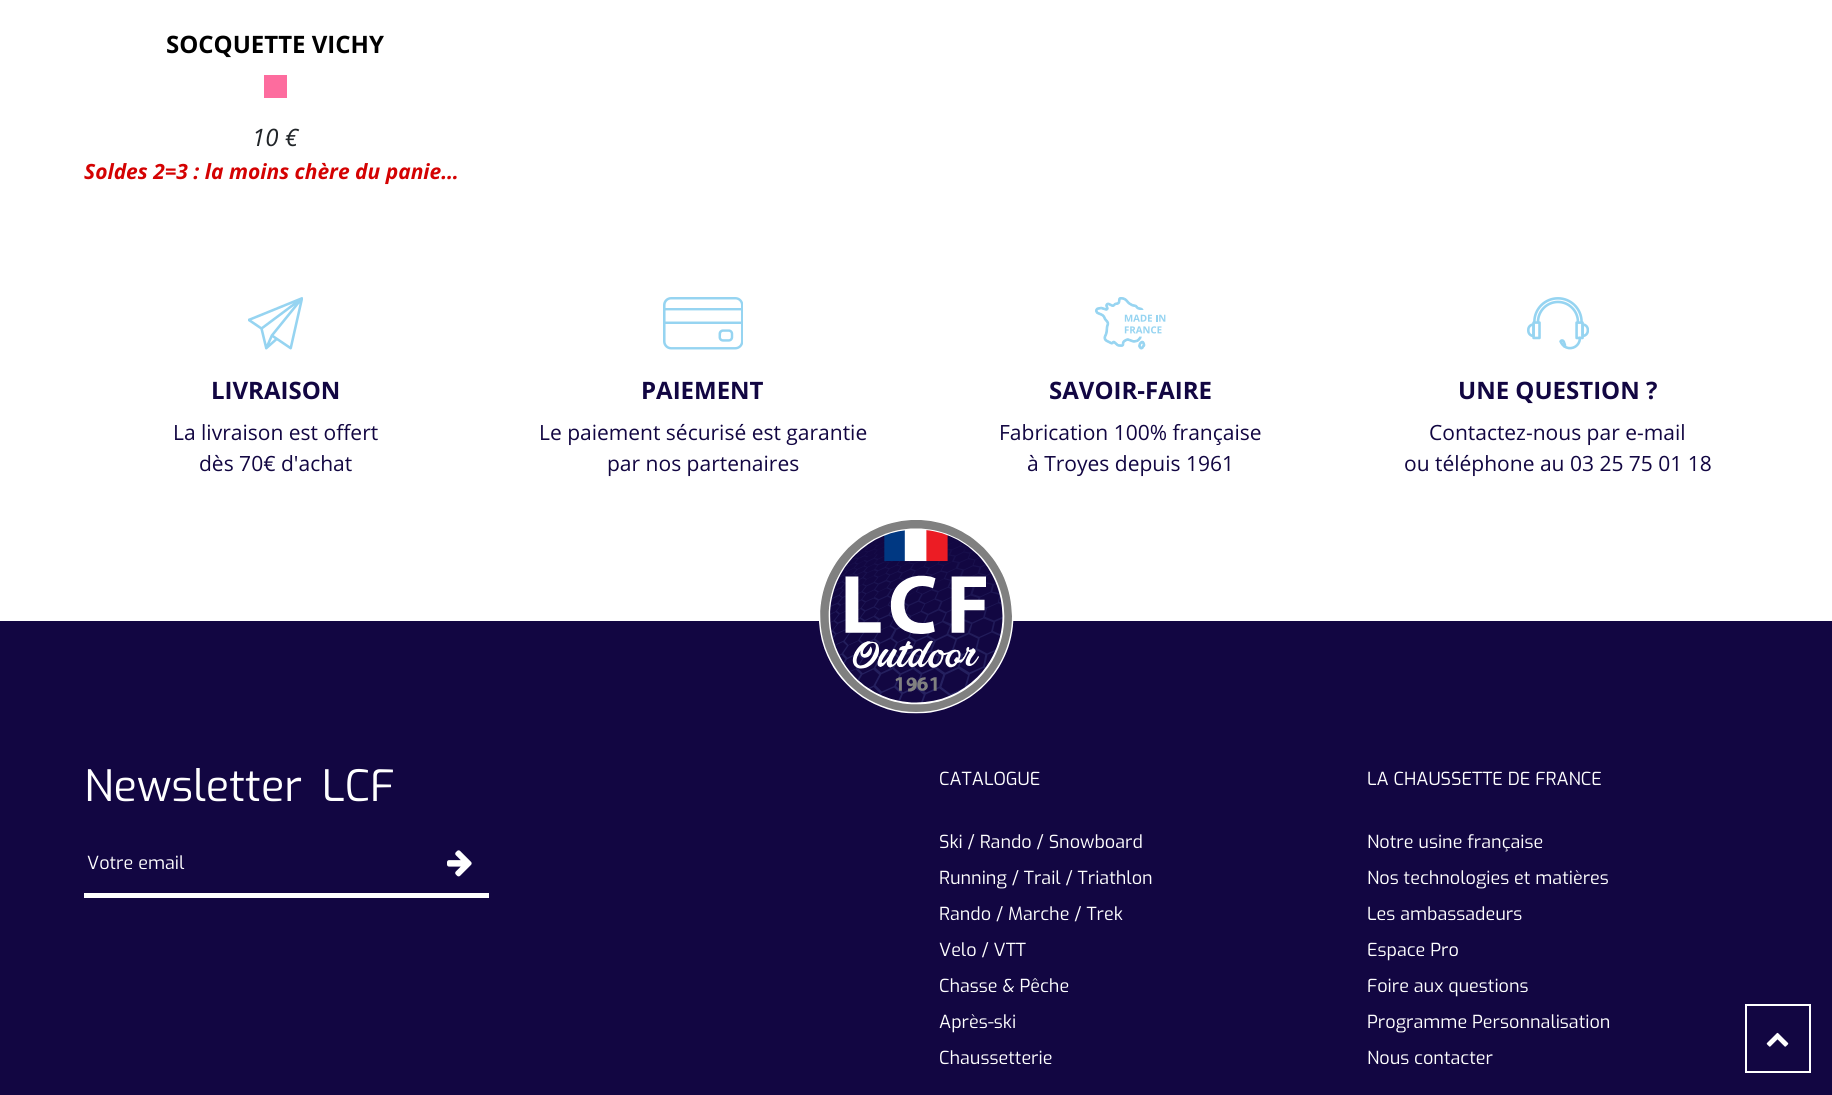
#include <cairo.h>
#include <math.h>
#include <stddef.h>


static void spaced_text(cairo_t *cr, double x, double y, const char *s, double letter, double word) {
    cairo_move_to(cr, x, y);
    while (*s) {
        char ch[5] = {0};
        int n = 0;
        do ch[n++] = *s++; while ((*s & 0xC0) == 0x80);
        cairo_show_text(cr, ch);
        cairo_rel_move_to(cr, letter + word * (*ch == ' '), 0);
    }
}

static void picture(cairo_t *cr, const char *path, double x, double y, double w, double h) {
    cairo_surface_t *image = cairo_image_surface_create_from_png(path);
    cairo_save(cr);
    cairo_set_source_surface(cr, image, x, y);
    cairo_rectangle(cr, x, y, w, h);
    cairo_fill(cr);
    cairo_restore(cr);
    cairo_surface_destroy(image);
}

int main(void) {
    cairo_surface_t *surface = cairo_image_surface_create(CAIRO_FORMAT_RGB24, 1832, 1095);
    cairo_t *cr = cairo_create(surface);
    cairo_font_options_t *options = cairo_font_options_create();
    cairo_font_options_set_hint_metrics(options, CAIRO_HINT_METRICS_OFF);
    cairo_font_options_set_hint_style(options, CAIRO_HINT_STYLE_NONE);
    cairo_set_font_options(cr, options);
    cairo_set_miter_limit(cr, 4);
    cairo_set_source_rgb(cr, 1, 1, 1);
    cairo_paint(cr);
    cairo_select_font_face(cr, "Open Sans", CAIRO_FONT_SLANT_NORMAL, CAIRO_FONT_WEIGHT_BOLD);
    cairo_set_font_size(cr, 24);
    cairo_set_source_rgb(cr, 0, 0, 0);
    cairo_move_to(cr, 166, 53);
    cairo_show_text(cr, "SOCQUETTE VICHY");
    cairo_set_source_rgb(cr, 0.992, 0.424, 0.62);
    cairo_rectangle(cr, 264, 75, 23, 23);
    cairo_fill(cr);
    cairo_select_font_face(cr, "Open Sans", CAIRO_FONT_SLANT_ITALIC, CAIRO_FONT_WEIGHT_NORMAL);
    cairo_set_source_rgb(cr, 0.129, 0.145, 0.161);
    cairo_move_to(cr, 252, 146);
    cairo_show_text(cr, "10 €");
    cairo_select_font_face(cr, "Open Sans", CAIRO_FONT_SLANT_ITALIC, CAIRO_FONT_WEIGHT_BOLD);
    cairo_set_font_size(cr, 21);
    cairo_set_source_rgb(cr, 0.831, 0.008, 0.008);
    cairo_move_to(cr, 84, 179);
    cairo_show_text(cr, "Soldes 2=3 : la moins chère du panie…");
    picture(cr, "img1.png", 248, 297, 55, 53);
    cairo_select_font_face(cr, "Open Sans", CAIRO_FONT_SLANT_NORMAL, CAIRO_FONT_WEIGHT_BOLD);
    cairo_set_font_size(cr, 24);
    cairo_set_source_rgb(cr, 0.071, 0.027, 0.259);
    cairo_move_to(cr, 211, 399);
    cairo_show_text(cr, "LIVRAISON");
    cairo_select_font_face(cr, "Open Sans", CAIRO_FONT_SLANT_NORMAL, CAIRO_FONT_WEIGHT_NORMAL);
    cairo_set_font_size(cr, 21);
    cairo_move_to(cr, 173, 440);
    cairo_show_text(cr, "La livraison est offert");
    cairo_move_to(cr, 199, 471);
    cairo_show_text(cr, "dès 70€ d'achat");
    picture(cr, "img2.png", 663, 297, 80, 53);
    cairo_select_font_face(cr, "Open Sans", CAIRO_FONT_SLANT_NORMAL, CAIRO_FONT_WEIGHT_BOLD);
    cairo_set_font_size(cr, 24);
    cairo_move_to(cr, 641, 399);
    cairo_show_text(cr, "PAIEMENT");
    cairo_select_font_face(cr, "Open Sans", CAIRO_FONT_SLANT_NORMAL, CAIRO_FONT_WEIGHT_NORMAL);
    cairo_set_font_size(cr, 21);
    cairo_move_to(cr, 539, 440);
    cairo_show_text(cr, "Le paiement sécurisé est garantie");
    cairo_move_to(cr, 607, 471);
    cairo_show_text(cr, "par nos partenaires");
    picture(cr, "img3.png", 1095, 297, 71, 53);
    cairo_select_font_face(cr, "Open Sans", CAIRO_FONT_SLANT_NORMAL, CAIRO_FONT_WEIGHT_BOLD);
    cairo_set_font_size(cr, 24);
    cairo_move_to(cr, 1049, 399);
    cairo_show_text(cr, "SAVOIR-FAIRE");
    cairo_select_font_face(cr, "Open Sans", CAIRO_FONT_SLANT_NORMAL, CAIRO_FONT_WEIGHT_NORMAL);
    cairo_set_font_size(cr, 21);
    cairo_move_to(cr, 999, 440);
    cairo_show_text(cr, "Fabrication 100% française");
    cairo_move_to(cr, 1027, 471);
    cairo_show_text(cr, "à Troyes depuis 1961");
    picture(cr, "img4.png", 1527, 297, 62, 53);
    cairo_select_font_face(cr, "Open Sans", CAIRO_FONT_SLANT_NORMAL, CAIRO_FONT_WEIGHT_BOLD);
    cairo_set_font_size(cr, 24);
    cairo_move_to(cr, 1458, 399);
    cairo_show_text(cr, "UNE QUESTION ?");
    cairo_select_font_face(cr, "Open Sans", CAIRO_FONT_SLANT_NORMAL, CAIRO_FONT_WEIGHT_NORMAL);
    cairo_set_font_size(cr, 21);
    cairo_move_to(cr, 1429, 440);
    cairo_show_text(cr, "Contactez-nous par e-mail");
    cairo_move_to(cr, 1404, 471);
    cairo_show_text(cr, "ou téléphone au 03 25 75 01 18");
    cairo_rectangle(cr, 0, 621, 1832, 474);
    cairo_fill(cr);
    picture(cr, "img5.png", 819, 520, 195, 194);
    cairo_select_font_face(cr, "Exo", CAIRO_FONT_SLANT_NORMAL, CAIRO_FONT_WEIGHT_NORMAL);
    cairo_set_font_size(cr, 43.25);
    cairo_set_source_rgb(cr, 1, 1, 1);
    spaced_text(cr, 84, 801, "Newsletter LCF", 0, 8);
    cairo_rectangle(cr, 84, 893, 405, 5);
    cairo_fill(cr);
    cairo_set_font_size(cr, 18);
    cairo_move_to(cr, 87, 869);
    cairo_show_text(cr, "Votre email");
    picture(cr, "img6.png", 447, 850, 25, 27);
    cairo_move_to(cr, 939, 785);
    cairo_show_text(cr, "CATALOGUE");
    cairo_move_to(cr, 939, 848);
    cairo_show_text(cr, "Ski / Rando / Snowboard");
    cairo_move_to(cr, 939, 884);
    cairo_show_text(cr, "Running / Trail / Triathlon");
    cairo_move_to(cr, 939, 920);
    cairo_show_text(cr, "Rando / Marche / Trek");
    cairo_move_to(cr, 939, 956);
    cairo_show_text(cr, "Velo / VTT");
    cairo_move_to(cr, 939, 992);
    cairo_show_text(cr, "Chasse & Pêche");
    cairo_move_to(cr, 939, 1028);
    cairo_show_text(cr, "Après-ski");
    cairo_move_to(cr, 939, 1064);
    cairo_show_text(cr, "Chaussetterie");
    cairo_move_to(cr, 1367, 785);
    cairo_show_text(cr, "LA CHAUSSETTE DE FRANCE");
    cairo_move_to(cr, 1367, 848);
    cairo_show_text(cr, "Notre usine française");
    cairo_move_to(cr, 1367, 884);
    cairo_show_text(cr, "Nos technologies et matières");
    cairo_move_to(cr, 1367, 920);
    cairo_show_text(cr, "Les ambassadeurs");
    cairo_move_to(cr, 1367, 956);
    cairo_show_text(cr, "Espace Pro");
    cairo_move_to(cr, 1367, 992);
    cairo_show_text(cr, "Foire aux questions");
    cairo_move_to(cr, 1367, 1028);
    cairo_show_text(cr, "Programme Personnalisation");
    cairo_move_to(cr, 1367, 1064);
    cairo_show_text(cr, "Nous contacter");
    cairo_rectangle(cr, 1746, 1005, 64, 67);
    cairo_stroke(cr);
    picture(cr, "img7.png", 1766, 1032, 23, 15);
    cairo_surface_write_to_png(surface, "page.png");
    cairo_font_options_destroy(options);
    cairo_destroy(cr);
    cairo_surface_destroy(surface);
    return 0;
}
